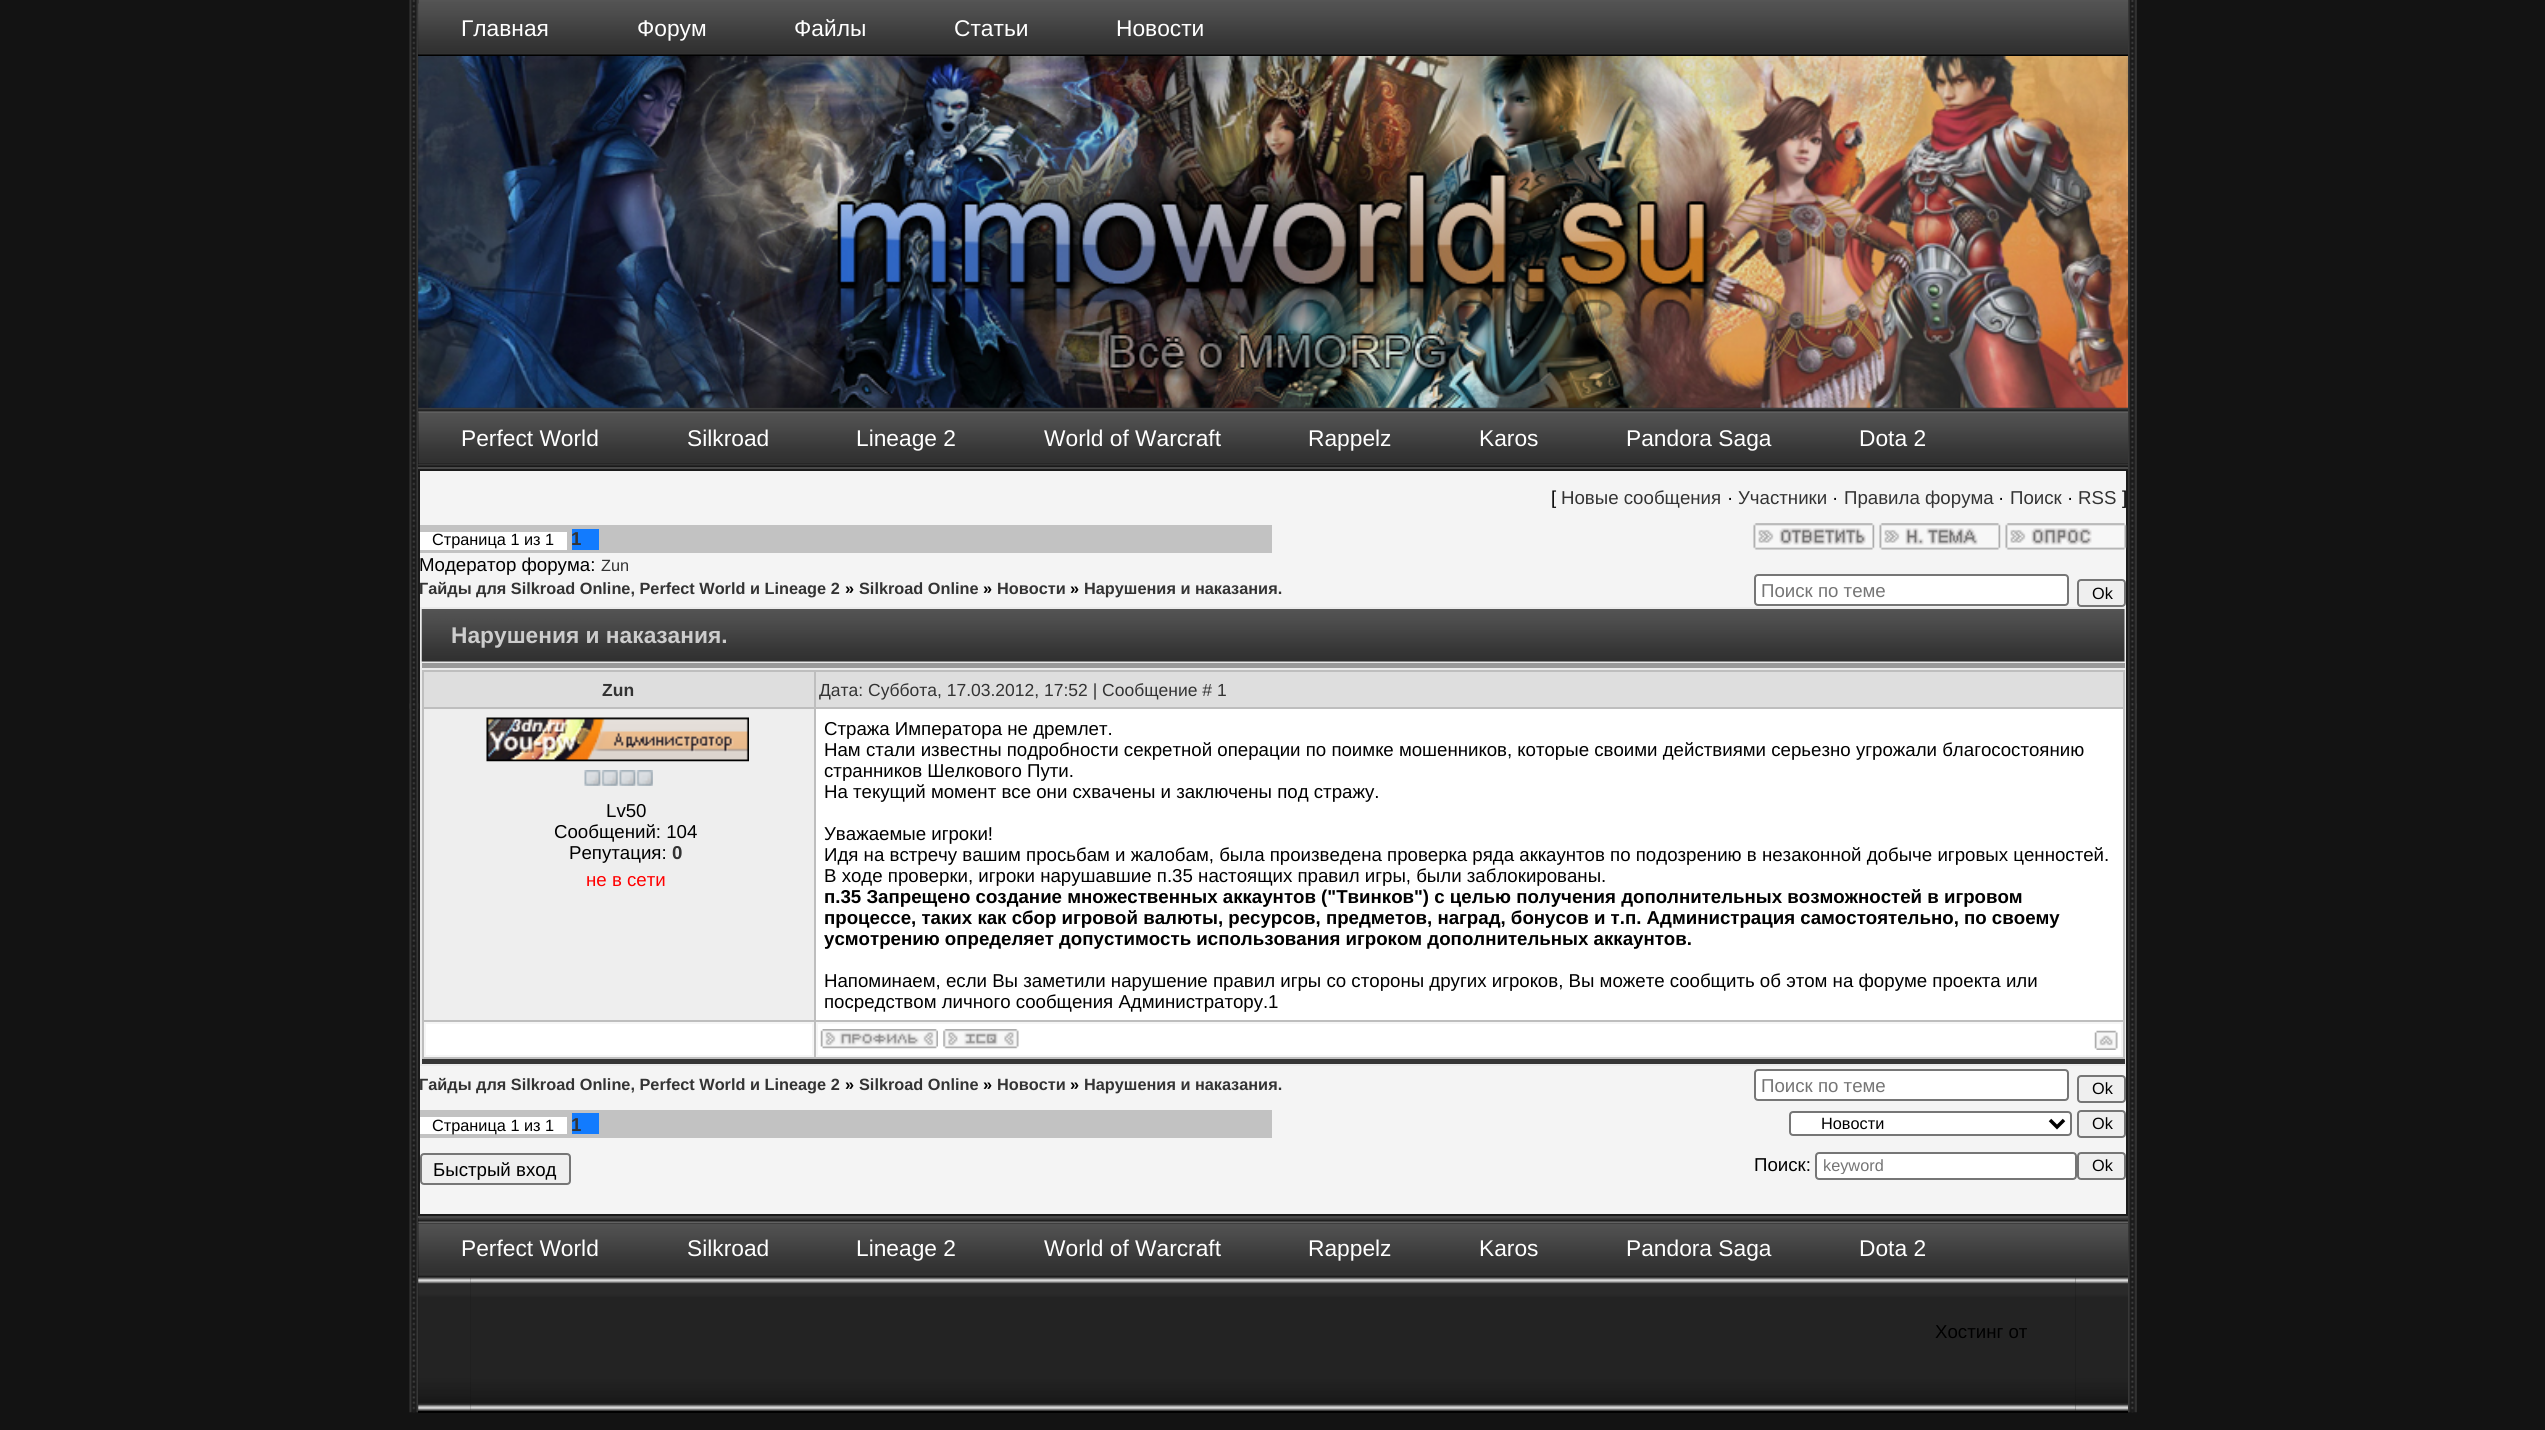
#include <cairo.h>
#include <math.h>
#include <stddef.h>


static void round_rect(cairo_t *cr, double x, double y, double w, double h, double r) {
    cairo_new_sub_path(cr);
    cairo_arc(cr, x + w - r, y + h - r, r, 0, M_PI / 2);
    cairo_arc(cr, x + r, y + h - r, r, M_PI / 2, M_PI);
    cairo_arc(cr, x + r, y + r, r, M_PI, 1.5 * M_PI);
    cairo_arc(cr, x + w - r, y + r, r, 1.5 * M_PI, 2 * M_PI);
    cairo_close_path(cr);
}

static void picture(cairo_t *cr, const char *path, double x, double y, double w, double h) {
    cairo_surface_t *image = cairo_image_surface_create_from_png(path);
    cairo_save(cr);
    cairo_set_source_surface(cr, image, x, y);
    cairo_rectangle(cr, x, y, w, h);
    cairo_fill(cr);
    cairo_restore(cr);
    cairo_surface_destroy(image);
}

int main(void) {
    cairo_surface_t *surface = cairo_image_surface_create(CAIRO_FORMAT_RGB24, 2545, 1430);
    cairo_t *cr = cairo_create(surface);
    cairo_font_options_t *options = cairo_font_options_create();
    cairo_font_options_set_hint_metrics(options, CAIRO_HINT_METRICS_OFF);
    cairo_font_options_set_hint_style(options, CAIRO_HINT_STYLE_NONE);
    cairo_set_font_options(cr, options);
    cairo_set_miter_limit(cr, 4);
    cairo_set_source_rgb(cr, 0.078, 0.078, 0.078);
    cairo_paint(cr);
    picture(cr, "img1.png", 409, 0, 10, 1413);
    cairo_set_source_rgb(cr, 0.957, 0.957, 0.957);
    cairo_rectangle(cr, 419, 470, 1708, 745);
    cairo_fill_preserve(cr);
    cairo_set_source_rgb(cr, 0.102, 0.102, 0.102);
    cairo_stroke(cr);
    picture(cr, "img2.png", 409, 703, 10, 6);
    cairo_set_source_rgb(cr, 0, 0, 0);
    cairo_rectangle(cr, 418, 1411, 1710, 2);
    cairo_fill(cr);
    cairo_rectangle(cr, 418, 0, 1710, 56);
    cairo_fill(cr);
    picture(cr, "img3.png", 418, 0, 1710, 55);
    picture(cr, "img4.png", 418, 3, 1710, 52);
    cairo_select_font_face(cr, "Liberation Sans", CAIRO_FONT_SLANT_NORMAL, CAIRO_FONT_WEIGHT_NORMAL);
    cairo_set_font_size(cr, 22.75);
    cairo_set_source_rgb(cr, 1, 1, 1);
    cairo_move_to(cr, 461, 36);
    cairo_show_text(cr, "Главная");
    cairo_move_to(cr, 637, 36);
    cairo_show_text(cr, "Форум");
    cairo_move_to(cr, 794, 36);
    cairo_show_text(cr, "Файлы");
    cairo_move_to(cr, 954, 36);
    cairo_show_text(cr, "Статьи");
    cairo_move_to(cr, 1116, 36);
    cairo_show_text(cr, "Новости");
    picture(cr, "img5.png", 418, 56, 1710, 352);
    picture(cr, "img7.png", 418, 407, 1710, 60);
    picture(cr, "img6.png", 418, 56, 1710, 352);
    cairo_set_source_rgb(cr, 0, 0, 0);
    cairo_rectangle(cr, 418, 413, 1710, 51);
    cairo_fill(cr);
    picture(cr, "img8.png", 418, 413, 1710, 51);
    cairo_set_source_rgb(cr, 1, 1, 1);
    cairo_move_to(cr, 461, 446);
    cairo_show_text(cr, "Perfect World");
    cairo_move_to(cr, 687, 446);
    cairo_show_text(cr, "Silkroad");
    cairo_move_to(cr, 856, 446);
    cairo_show_text(cr, "Lineage 2");
    cairo_move_to(cr, 1044, 446);
    cairo_show_text(cr, "World of Warcraft");
    cairo_move_to(cr, 1308, 446);
    cairo_show_text(cr, "Rappelz");
    cairo_move_to(cr, 1479, 446);
    cairo_show_text(cr, "Karos");
    cairo_move_to(cr, 1626, 446);
    cairo_show_text(cr, "Pandora Saga");
    cairo_move_to(cr, 1859, 446);
    cairo_show_text(cr, "Dota 2");
    cairo_set_source_rgb(cr, 0.286, 0.286, 0.286);
    cairo_rectangle(cr, 418, 467, 1710, 2);
    cairo_fill(cr);
    cairo_rectangle(cr, 418, 1216, 1710, 2);
    cairo_fill(cr);
    cairo_set_font_size(cr, 18.67);
    cairo_set_source_rgb(cr, 0, 0, 0);
    cairo_move_to(cr, 1551, 504);
    cairo_show_text(cr, "[");
    cairo_set_source_rgb(cr, 0.2, 0.2, 0.2);
    cairo_move_to(cr, 1561, 504);
    cairo_show_text(cr, "Новые сообщения");
    cairo_set_source_rgb(cr, 0, 0, 0);
    cairo_move_to(cr, 1727, 504);
    cairo_show_text(cr, "·");
    cairo_set_source_rgb(cr, 0.2, 0.2, 0.2);
    cairo_move_to(cr, 1738, 504);
    cairo_show_text(cr, "Участники");
    cairo_set_source_rgb(cr, 0, 0, 0);
    cairo_move_to(cr, 1832, 504);
    cairo_show_text(cr, "·");
    cairo_set_source_rgb(cr, 0.2, 0.2, 0.2);
    cairo_move_to(cr, 1844, 504);
    cairo_show_text(cr, "Правила форума");
    cairo_set_source_rgb(cr, 0, 0, 0);
    cairo_move_to(cr, 1998, 504);
    cairo_show_text(cr, "·");
    cairo_set_source_rgb(cr, 0.2, 0.2, 0.2);
    cairo_move_to(cr, 2010, 504);
    cairo_show_text(cr, "Поиск");
    cairo_set_source_rgb(cr, 0, 0, 0);
    cairo_move_to(cr, 2067, 504);
    cairo_show_text(cr, "·");
    cairo_set_source_rgb(cr, 0.2, 0.2, 0.2);
    cairo_move_to(cr, 2078, 504);
    cairo_show_text(cr, "RSS");
    cairo_set_source_rgb(cr, 0, 0, 0);
    cairo_move_to(cr, 2122, 504);
    cairo_show_text(cr, "]");
    cairo_set_source_rgb(cr, 0.761, 0.761, 0.761);
    cairo_rectangle(cr, 420, 525, 852, 28);
    cairo_fill(cr);
    cairo_set_source_rgb(cr, 1, 1, 1);
    cairo_rectangle(cr, 420, 532, 147, 18);
    cairo_fill(cr);
    cairo_set_font_size(cr, 16.3);
    cairo_set_source_rgb(cr, 0, 0, 0);
    cairo_move_to(cr, 432, 545);
    cairo_show_text(cr, "Страница 1 из 1");
    cairo_set_source_rgb(cr, 0.071, 0.482, 0.996);
    cairo_rectangle(cr, 572, 529, 27, 21);
    cairo_fill(cr);
    cairo_select_font_face(cr, "Liberation Sans", CAIRO_FONT_SLANT_NORMAL, CAIRO_FONT_WEIGHT_BOLD);
    cairo_set_font_size(cr, 18.67);
    cairo_set_source_rgb(cr, 0.2, 0.2, 0.2);
    cairo_move_to(cr, 571, 545);
    cairo_show_text(cr, "1");
    picture(cr, "img9.png", 1753, 523, 122, 27);
    picture(cr, "img10.png", 1879, 523, 122, 27);
    picture(cr, "img11.png", 2005, 523, 122, 27);
    cairo_select_font_face(cr, "Liberation Sans", CAIRO_FONT_SLANT_NORMAL, CAIRO_FONT_WEIGHT_NORMAL);
    cairo_set_source_rgb(cr, 0, 0, 0);
    cairo_move_to(cr, 419, 571);
    cairo_show_text(cr, "Модератор форума:");
    cairo_set_font_size(cr, 16.3);
    cairo_set_source_rgb(cr, 0.2, 0.2, 0.2);
    cairo_move_to(cr, 601, 571);
    cairo_show_text(cr, "Zun");
    cairo_select_font_face(cr, "Liberation Sans", CAIRO_FONT_SLANT_NORMAL, CAIRO_FONT_WEIGHT_BOLD);
    cairo_move_to(cr, 419, 594);
    cairo_show_text(cr, "Гайды для Silkroad Online, Perfect World и Lineage 2");
    cairo_set_source_rgb(cr, 0, 0, 0);
    cairo_move_to(cr, 845, 594);
    cairo_show_text(cr, "»");
    cairo_set_source_rgb(cr, 0.2, 0.2, 0.2);
    cairo_move_to(cr, 859, 594);
    cairo_show_text(cr, "Silkroad Online");
    cairo_set_source_rgb(cr, 0, 0, 0);
    cairo_move_to(cr, 983, 594);
    cairo_show_text(cr, "»");
    cairo_set_source_rgb(cr, 0.2, 0.2, 0.2);
    cairo_move_to(cr, 997, 594);
    cairo_show_text(cr, "Новости");
    cairo_set_source_rgb(cr, 0, 0, 0);
    cairo_move_to(cr, 1070, 594);
    cairo_show_text(cr, "»");
    cairo_set_source_rgb(cr, 0.2, 0.2, 0.2);
    cairo_move_to(cr, 1084, 594);
    cairo_show_text(cr, "Нарушения и наказания.");
    cairo_set_source_rgb(cr, 1, 1, 1);
    round_rect(cr, 1755, 575, 313, 30, 3);
    cairo_fill_preserve(cr);
    cairo_set_source_rgb(cr, 0.463, 0.463, 0.463);
    cairo_stroke(cr);
    cairo_select_font_face(cr, "Liberation Sans", CAIRO_FONT_SLANT_NORMAL, CAIRO_FONT_WEIGHT_NORMAL);
    cairo_set_font_size(cr, 18.67);
    cairo_set_source_rgb(cr, 0.459, 0.459, 0.459);
    cairo_move_to(cr, 1761, 597);
    cairo_show_text(cr, "Поиск по теме");
    cairo_set_source_rgb(cr, 0.937, 0.937, 0.937);
    round_rect(cr, 2078, 580, 47, 26, 3);
    cairo_fill_preserve(cr);
    cairo_set_source_rgb(cr, 0.463, 0.463, 0.463);
    cairo_stroke(cr);
    cairo_set_font_size(cr, 16.3);
    cairo_set_source_rgb(cr, 0, 0, 0);
    cairo_move_to(cr, 2092, 599);
    cairo_show_text(cr, "Ok");
    cairo_set_source_rgb(cr, 0.918, 0.918, 0.918);
    cairo_rectangle(cr, 420, 607, 1706, 459);
    cairo_fill(cr);
    cairo_set_source_rgb(cr, 0.871, 0.871, 0.871);
    cairo_rectangle(cr, 422, 609, 1703, 53);
    cairo_fill(cr);
    picture(cr, "img12.png", 421, 609, 1704, 53);
    cairo_select_font_face(cr, "Liberation Sans", CAIRO_FONT_SLANT_NORMAL, CAIRO_FONT_WEIGHT_BOLD);
    cairo_set_font_size(cr, 22.75);
    cairo_set_source_rgb(cr, 0.8, 0.8, 0.8);
    cairo_move_to(cr, 451, 643);
    cairo_show_text(cr, "Нарушения и наказания.");
    cairo_set_source_rgb(cr, 0.6, 0.6, 0.6);
    cairo_rectangle(cr, 422, 663, 1703, 5);
    cairo_fill(cr);
    cairo_set_source_rgb(cr, 0.212, 0.212, 0.212);
    cairo_rectangle(cr, 422, 1059, 1703, 5);
    cairo_fill(cr);
    cairo_set_source_rgb(cr, 0.745, 0.745, 0.745);
    cairo_rectangle(cr, 422, 670, 1703, 389);
    cairo_fill(cr);
    cairo_set_source_rgb(cr, 0.871, 0.871, 0.871);
    cairo_rectangle(cr, 424, 672, 390, 35);
    cairo_fill(cr);
    cairo_set_font_size(cr, 17.5);
    cairo_set_source_rgb(cr, 0.2, 0.2, 0.2);
    cairo_move_to(cr, 602, 696);
    cairo_show_text(cr, "Zun");
    cairo_set_source_rgb(cr, 0.871, 0.871, 0.871);
    cairo_rectangle(cr, 816, 672, 1307, 35);
    cairo_fill(cr);
    cairo_select_font_face(cr, "Liberation Sans", CAIRO_FONT_SLANT_NORMAL, CAIRO_FONT_WEIGHT_NORMAL);
    cairo_set_source_rgb(cr, 0.2, 0.2, 0.2);
    cairo_move_to(cr, 819, 696);
    cairo_show_text(cr, "Дата: Суббота, 17.03.2012, 17:52 | Сообщение # 1");
    cairo_set_source_rgb(cr, 0.933, 0.933, 0.933);
    cairo_rectangle(cr, 424, 709, 390, 311);
    cairo_fill(cr);
    picture(cr, "img13.png", 486, 717, 263, 45);
    picture(cr, "img14.png", 584, 770, 69, 16);
    cairo_set_font_size(cr, 18.67);
    cairo_set_source_rgb(cr, 0, 0, 0);
    cairo_move_to(cr, 606, 817);
    cairo_show_text(cr, "Lv50");
    cairo_move_to(cr, 554, 838);
    cairo_show_text(cr, "Сообщений: 104");
    cairo_move_to(cr, 569, 859);
    cairo_show_text(cr, "Репутация:");
    cairo_select_font_face(cr, "Liberation Sans", CAIRO_FONT_SLANT_NORMAL, CAIRO_FONT_WEIGHT_BOLD);
    cairo_set_source_rgb(cr, 0.2, 0.2, 0.2);
    cairo_move_to(cr, 672, 859);
    cairo_show_text(cr, "0");
    cairo_select_font_face(cr, "Liberation Sans", CAIRO_FONT_SLANT_NORMAL, CAIRO_FONT_WEIGHT_NORMAL);
    cairo_set_source_rgb(cr, 1, 0, 0);
    cairo_move_to(cr, 586, 886);
    cairo_show_text(cr, "не в сети");
    cairo_set_source_rgb(cr, 1, 1, 1);
    cairo_rectangle(cr, 816, 709, 1307, 311);
    cairo_fill(cr);
    cairo_set_source_rgb(cr, 0, 0, 0);
    cairo_move_to(cr, 824, 735);
    cairo_show_text(cr, "Стража Императора не дремлет.");
    cairo_move_to(cr, 824, 756);
    cairo_show_text(cr, "Нам стали известны подробности секретной операции по поимке мошенников, которые своими действиями серьезно угрожали благосостоянию");
    cairo_move_to(cr, 824, 777);
    cairo_show_text(cr, "странников Шелкового Пути.");
    cairo_move_to(cr, 824, 798);
    cairo_show_text(cr, "На текущий момент все они схвачены и заключены под стражу.");
    cairo_move_to(cr, 824, 840);
    cairo_show_text(cr, "Уважаемые игроки!");
    cairo_move_to(cr, 824, 861);
    cairo_show_text(cr, "Идя на встречу вашим просьбам и жалобам, была произведена проверка ряда аккаунтов по подозрению в незаконной добыче игровых ценностей.");
    cairo_move_to(cr, 824, 882);
    cairo_show_text(cr, "В ходе проверки, игроки нарушавшие п.35 настоящих правил игры, были заблокированы.");
    cairo_select_font_face(cr, "Liberation Sans", CAIRO_FONT_SLANT_NORMAL, CAIRO_FONT_WEIGHT_BOLD);
    cairo_move_to(cr, 824, 903);
    cairo_show_text(cr, "п.35 Запрещено создание множественных аккаунтов (\"Твинков\") с целью получения дополнительных возможностей в игровом");
    cairo_move_to(cr, 824, 924);
    cairo_show_text(cr, "процессе, таких как сбор игровой валюты, ресурсов, предметов, наград, бонусов и т.п. Администрация самостоятельно, по своему");
    cairo_move_to(cr, 824, 945);
    cairo_show_text(cr, "усмотрению определяет допустимость использования игроком дополнительных аккаунтов.");
    cairo_select_font_face(cr, "Liberation Sans", CAIRO_FONT_SLANT_NORMAL, CAIRO_FONT_WEIGHT_NORMAL);
    cairo_move_to(cr, 824, 987);
    cairo_show_text(cr, "Напоминаем, если Вы заметили нарушение правил игры со стороны других игроков, Вы можете сообщить об этом на форуме проекта или");
    cairo_move_to(cr, 824, 1008);
    cairo_show_text(cr, "посредством личного сообщения Администратору.");
    cairo_move_to(cr, 1268, 1008);
    cairo_show_text(cr, "1");
    cairo_set_source_rgb(cr, 1, 1, 1);
    cairo_rectangle(cr, 425, 1023, 388, 33);
    cairo_fill_preserve(cr);
    cairo_set_source_rgb(cr, 0.961, 0.961, 0.961);
    cairo_stroke(cr);
    cairo_set_source_rgb(cr, 1, 1, 1);
    cairo_rectangle(cr, 817, 1023, 1305, 33);
    cairo_fill_preserve(cr);
    cairo_set_source_rgb(cr, 0.961, 0.961, 0.961);
    cairo_stroke(cr);
    picture(cr, "img15.png", 820, 1029, 118, 20);
    picture(cr, "img16.png", 943, 1029, 76, 20);
    picture(cr, "img17.png", 2094, 1030, 24, 20);
    cairo_select_font_face(cr, "Liberation Sans", CAIRO_FONT_SLANT_NORMAL, CAIRO_FONT_WEIGHT_BOLD);
    cairo_set_font_size(cr, 16.3);
    cairo_set_source_rgb(cr, 0.2, 0.2, 0.2);
    cairo_move_to(cr, 419, 1090);
    cairo_show_text(cr, "Гайды для Silkroad Online, Perfect World и Lineage 2");
    cairo_set_source_rgb(cr, 0, 0, 0);
    cairo_move_to(cr, 845, 1090);
    cairo_show_text(cr, "»");
    cairo_set_source_rgb(cr, 0.2, 0.2, 0.2);
    cairo_move_to(cr, 859, 1090);
    cairo_show_text(cr, "Silkroad Online");
    cairo_set_source_rgb(cr, 0, 0, 0);
    cairo_move_to(cr, 983, 1090);
    cairo_show_text(cr, "»");
    cairo_set_source_rgb(cr, 0.2, 0.2, 0.2);
    cairo_move_to(cr, 997, 1090);
    cairo_show_text(cr, "Новости");
    cairo_set_source_rgb(cr, 0, 0, 0);
    cairo_move_to(cr, 1070, 1090);
    cairo_show_text(cr, "»");
    cairo_set_source_rgb(cr, 0.2, 0.2, 0.2);
    cairo_move_to(cr, 1084, 1090);
    cairo_show_text(cr, "Нарушения и наказания.");
    cairo_set_source_rgb(cr, 1, 1, 1);
    round_rect(cr, 1755, 1070, 313, 30, 3);
    cairo_fill_preserve(cr);
    cairo_set_source_rgb(cr, 0.463, 0.463, 0.463);
    cairo_stroke(cr);
    cairo_select_font_face(cr, "Liberation Sans", CAIRO_FONT_SLANT_NORMAL, CAIRO_FONT_WEIGHT_NORMAL);
    cairo_set_font_size(cr, 18.67);
    cairo_set_source_rgb(cr, 0.459, 0.459, 0.459);
    cairo_move_to(cr, 1761, 1092);
    cairo_show_text(cr, "Поиск по теме");
    cairo_set_source_rgb(cr, 0.937, 0.937, 0.937);
    round_rect(cr, 2078, 1076, 47, 26, 3);
    cairo_fill_preserve(cr);
    cairo_set_source_rgb(cr, 0.463, 0.463, 0.463);
    cairo_stroke(cr);
    cairo_set_font_size(cr, 16.3);
    cairo_set_source_rgb(cr, 0, 0, 0);
    cairo_move_to(cr, 2092, 1094);
    cairo_show_text(cr, "Ok");
    cairo_set_source_rgb(cr, 0.761, 0.761, 0.761);
    cairo_rectangle(cr, 420, 1110, 852, 28);
    cairo_fill(cr);
    cairo_set_source_rgb(cr, 1, 1, 1);
    cairo_rectangle(cr, 420, 1117, 147, 17);
    cairo_fill(cr);
    cairo_set_source_rgb(cr, 0, 0, 0);
    cairo_move_to(cr, 432, 1131);
    cairo_show_text(cr, "Страница 1 из 1");
    cairo_set_source_rgb(cr, 0.071, 0.482, 0.996);
    cairo_rectangle(cr, 572, 1113, 27, 21);
    cairo_fill(cr);
    cairo_select_font_face(cr, "Liberation Sans", CAIRO_FONT_SLANT_NORMAL, CAIRO_FONT_WEIGHT_BOLD);
    cairo_set_font_size(cr, 18.67);
    cairo_set_source_rgb(cr, 0.2, 0.2, 0.2);
    cairo_move_to(cr, 571, 1131);
    cairo_show_text(cr, "1");
    cairo_set_source_rgb(cr, 1, 1, 1);
    round_rect(cr, 1790, 1112, 281, 23, 3);
    cairo_fill_preserve(cr);
    cairo_set_source_rgb(cr, 0.463, 0.463, 0.463);
    cairo_stroke(cr);
    cairo_new_path(cr);
    cairo_move_to(cr, 2050, 1120);
    cairo_line_to(cr, 2057, 1127);
    cairo_line_to(cr, 2064, 1120);
    cairo_set_source_rgb(cr, 0, 0, 0);
    cairo_set_line_width(cr, 3.5);
    cairo_stroke(cr);
    cairo_select_font_face(cr, "Liberation Sans", CAIRO_FONT_SLANT_NORMAL, CAIRO_FONT_WEIGHT_NORMAL);
    cairo_set_font_size(cr, 16.3);
    cairo_move_to(cr, 1821, 1129);
    cairo_show_text(cr, "Новости");
    cairo_set_source_rgb(cr, 0.937, 0.937, 0.937);
    round_rect(cr, 2078, 1111, 47, 26, 3);
    cairo_fill_preserve(cr);
    cairo_set_source_rgb(cr, 0.463, 0.463, 0.463);
    cairo_set_line_width(cr, 2);
    cairo_stroke(cr);
    cairo_set_source_rgb(cr, 0, 0, 0);
    cairo_move_to(cr, 2092, 1129);
    cairo_show_text(cr, "Ok");
    cairo_set_source_rgb(cr, 0.937, 0.937, 0.937);
    round_rect(cr, 421, 1154, 149, 30, 3);
    cairo_fill_preserve(cr);
    cairo_set_source_rgb(cr, 0.463, 0.463, 0.463);
    cairo_stroke(cr);
    cairo_set_font_size(cr, 18.67);
    cairo_set_source_rgb(cr, 0, 0, 0);
    cairo_move_to(cr, 433, 1176);
    cairo_show_text(cr, "Быстрый вход");
    cairo_move_to(cr, 1754, 1171);
    cairo_show_text(cr, "Поиск:");
    cairo_set_source_rgb(cr, 1, 1, 1);
    round_rect(cr, 1816, 1153, 260, 26, 3);
    cairo_fill_preserve(cr);
    cairo_set_source_rgb(cr, 0.463, 0.463, 0.463);
    cairo_stroke(cr);
    cairo_save(cr);
    cairo_rectangle(cr, 1822, 1157, 248, 17);
    cairo_clip(cr);
    cairo_set_font_size(cr, 16.3);
    cairo_set_source_rgb(cr, 0.459, 0.459, 0.459);
    cairo_move_to(cr, 1823, 1171);
    cairo_show_text(cr, "keyword");
    cairo_restore(cr);
    cairo_set_source_rgb(cr, 0.937, 0.937, 0.937);
    round_rect(cr, 2078, 1153, 47, 26, 3);
    cairo_fill_preserve(cr);
    cairo_set_source_rgb(cr, 0.463, 0.463, 0.463);
    cairo_stroke(cr);
    cairo_set_font_size(cr, 16.3);
    cairo_set_source_rgb(cr, 0, 0, 0);
    cairo_move_to(cr, 2092, 1171);
    cairo_show_text(cr, "Ok");
    cairo_rectangle(cr, 418, 1218, 1710, 60);
    cairo_fill(cr);
    picture(cr, "img18.png", 418, 1218, 1710, 60);
    cairo_rectangle(cr, 418, 1223, 1710, 51);
    cairo_fill(cr);
    picture(cr, "img19.png", 418, 1223, 1710, 51);
    cairo_set_font_size(cr, 22.75);
    cairo_set_source_rgb(cr, 1, 1, 1);
    cairo_move_to(cr, 461, 1256);
    cairo_show_text(cr, "Perfect World");
    cairo_move_to(cr, 687, 1256);
    cairo_show_text(cr, "Silkroad");
    cairo_move_to(cr, 856, 1256);
    cairo_show_text(cr, "Lineage 2");
    cairo_move_to(cr, 1044, 1256);
    cairo_show_text(cr, "World of Warcraft");
    cairo_move_to(cr, 1308, 1256);
    cairo_show_text(cr, "Rappelz");
    cairo_move_to(cr, 1479, 1256);
    cairo_show_text(cr, "Karos");
    cairo_move_to(cr, 1626, 1256);
    cairo_show_text(cr, "Pandora Saga");
    cairo_move_to(cr, 1859, 1256);
    cairo_show_text(cr, "Dota 2");
    picture(cr, "img21.png", 470, 1277, 1606, 134);
    picture(cr, "img20.png", 418, 1277, 53, 134);
    cairo_set_font_size(cr, 18.67);
    cairo_set_source_rgb(cr, 0, 0, 0);
    cairo_move_to(cr, 1935, 1338);
    cairo_show_text(cr, "Хостинг от");
    picture(cr, "img22.png", 2075, 1277, 53, 134);
    picture(cr, "img23.png", 2128, 0, 9, 1413);
    picture(cr, "img24.png", 2131, 703, 6, 6);
    cairo_surface_write_to_png(surface, "page.png");
    cairo_font_options_destroy(options);
    cairo_destroy(cr);
    cairo_surface_destroy(surface);
    return 0;
}
